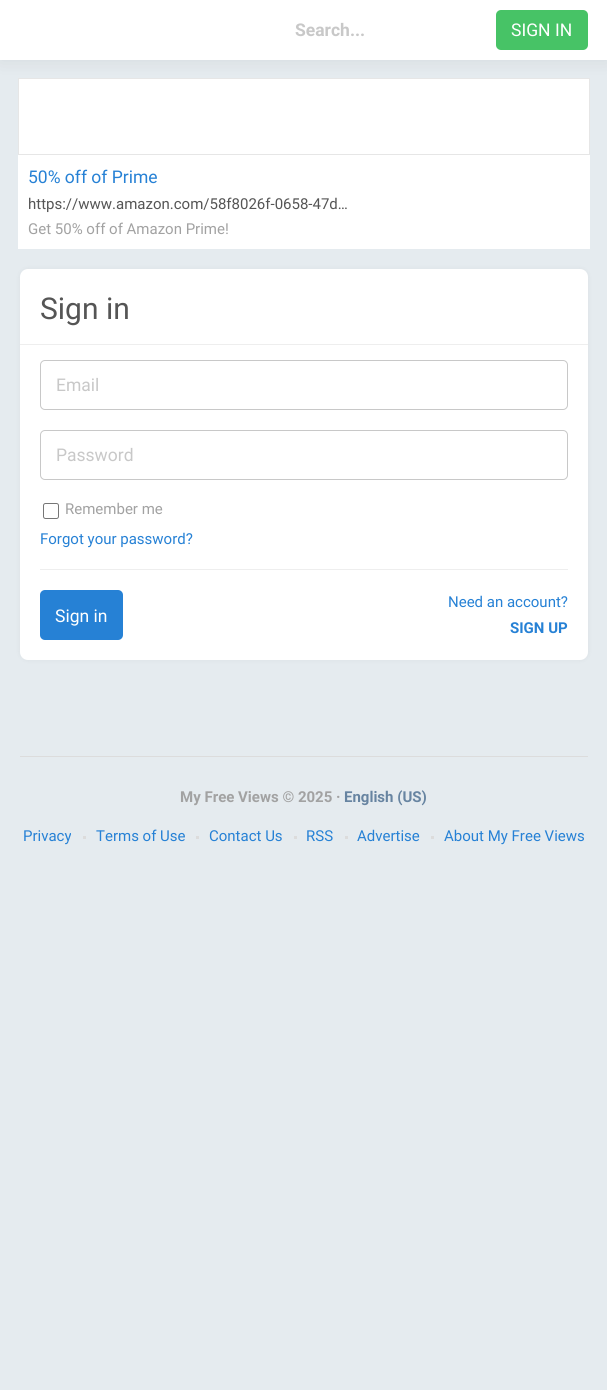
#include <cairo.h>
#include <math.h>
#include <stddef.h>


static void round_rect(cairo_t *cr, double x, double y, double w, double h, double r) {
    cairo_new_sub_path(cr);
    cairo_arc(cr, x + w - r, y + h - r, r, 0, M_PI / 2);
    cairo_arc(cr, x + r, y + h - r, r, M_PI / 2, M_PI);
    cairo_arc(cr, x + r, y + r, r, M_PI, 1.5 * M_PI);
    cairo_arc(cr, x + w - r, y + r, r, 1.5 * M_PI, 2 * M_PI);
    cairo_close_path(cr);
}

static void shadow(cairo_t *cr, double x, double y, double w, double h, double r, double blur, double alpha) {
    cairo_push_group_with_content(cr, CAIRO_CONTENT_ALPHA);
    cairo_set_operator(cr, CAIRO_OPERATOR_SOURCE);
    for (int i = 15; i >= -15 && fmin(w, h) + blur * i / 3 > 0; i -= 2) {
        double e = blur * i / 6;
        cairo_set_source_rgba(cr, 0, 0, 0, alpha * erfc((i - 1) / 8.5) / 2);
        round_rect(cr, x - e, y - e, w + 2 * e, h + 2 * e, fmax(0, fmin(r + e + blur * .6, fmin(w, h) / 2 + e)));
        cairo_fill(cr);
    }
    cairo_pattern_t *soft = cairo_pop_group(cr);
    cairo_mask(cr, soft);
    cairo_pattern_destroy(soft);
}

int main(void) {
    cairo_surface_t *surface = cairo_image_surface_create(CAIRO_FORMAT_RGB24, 607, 1390);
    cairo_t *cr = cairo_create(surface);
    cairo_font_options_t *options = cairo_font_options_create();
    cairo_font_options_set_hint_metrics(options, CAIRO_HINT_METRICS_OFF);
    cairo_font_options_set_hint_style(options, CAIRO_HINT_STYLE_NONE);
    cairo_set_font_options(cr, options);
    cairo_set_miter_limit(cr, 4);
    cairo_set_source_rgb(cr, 0.898, 0.918, 0.937);
    cairo_paint(cr);
    cairo_set_source_rgb(cr, 0, 0, 0);
    shadow(cr, 0, 0, 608, 60, 0, 10, 0.08);
    cairo_set_source_rgb(cr, 1, 1, 1);
    cairo_rectangle(cr, 0, 0, 607, 60);
    cairo_fill(cr);
    cairo_select_font_face(cr, "Roboto", CAIRO_FONT_SLANT_NORMAL, CAIRO_FONT_WEIGHT_BOLD);
    cairo_set_font_size(cr, 17.5);
    cairo_set_source_rgb(cr, 0.784, 0.784, 0.784);
    cairo_move_to(cr, 295, 36);
    cairo_show_text(cr, "Search...");
    cairo_set_source_rgb(cr, 0.278, 0.765, 0.4);
    round_rect(cr, 496, 10, 92, 40, 5);
    cairo_fill(cr);
    cairo_select_font_face(cr, "Roboto", CAIRO_FONT_SLANT_NORMAL, CAIRO_FONT_WEIGHT_NORMAL);
    cairo_set_source_rgb(cr, 1, 1, 1);
    cairo_move_to(cr, 511, 36);
    cairo_show_text(cr, "SIGN IN");
    cairo_rectangle(cr, 18, 79, 572, 170);
    cairo_fill(cr);
    cairo_rectangle(cr, 18.5, 78.5, 571, 76);
    cairo_set_source_rgb(cr, 0.902, 0.902, 0.902);
    cairo_set_line_width(cr, 1);
    cairo_stroke(cr);
    cairo_set_source_rgb(cr, 0.149, 0.506, 0.835);
    cairo_move_to(cr, 28, 183);
    cairo_show_text(cr, "50% off of Prime");
    cairo_set_font_size(cr, 15);
    cairo_set_source_rgb(cr, 0.333, 0.333, 0.333);
    cairo_move_to(cr, 28, 209);
    cairo_show_text(cr, "https://www.amazon.com/58f8026f-0658-47d…");
    cairo_set_source_rgb(cr, 0.635, 0.635, 0.635);
    cairo_move_to(cr, 28, 234);
    cairo_show_text(cr, "Get 50% off of Amazon Prime!");
    cairo_set_source_rgb(cr, 0, 0, 0);
    shadow(cr, 20, 269, 568, 391, 8, 2.5, 0.05);
    cairo_set_source_rgb(cr, 1, 1, 1);
    round_rect(cr, 20, 269, 568, 391, 8);
    cairo_fill(cr);
    cairo_set_source_rgb(cr, 0.933, 0.933, 0.933);
    cairo_rectangle(cr, 20, 344, 568, 1);
    cairo_fill(cr);
    cairo_set_font_size(cr, 30);
    cairo_set_source_rgb(cr, 0.333, 0.333, 0.333);
    cairo_move_to(cr, 40, 319);
    cairo_show_text(cr, "Sign in");
    round_rect(cr, 40.5, 360.5, 527, 49, 4.5);
    cairo_set_source_rgb(cr, 0.784, 0.784, 0.784);
    cairo_stroke(cr);
    cairo_set_font_size(cr, 17.5);
    cairo_move_to(cr, 56, 391);
    cairo_show_text(cr, "Email");
    round_rect(cr, 40.5, 430.5, 527, 49, 4.5);
    cairo_stroke(cr);
    cairo_move_to(cr, 56, 461);
    cairo_show_text(cr, "Password");
    round_rect(cr, 43.5, 503.5, 15, 15, 2);
    cairo_set_source_rgb(cr, 0.463, 0.463, 0.463);
    cairo_stroke(cr);
    cairo_set_font_size(cr, 15);
    cairo_set_source_rgb(cr, 0.635, 0.635, 0.635);
    cairo_move_to(cr, 65, 514);
    cairo_show_text(cr, "Remember me");
    cairo_set_source_rgb(cr, 0.149, 0.506, 0.835);
    cairo_move_to(cr, 40, 544);
    cairo_show_text(cr, "Forgot your password?");
    cairo_set_source_rgb(cr, 0.933, 0.933, 0.933);
    cairo_rectangle(cr, 40, 569, 528, 1);
    cairo_fill(cr);
    cairo_set_source_rgb(cr, 0.149, 0.506, 0.835);
    round_rect(cr, 40, 590, 83, 50, 5);
    cairo_fill(cr);
    cairo_set_font_size(cr, 17.5);
    cairo_set_source_rgb(cr, 1, 1, 1);
    cairo_move_to(cr, 55, 622);
    cairo_show_text(cr, "Sign in");
    cairo_set_font_size(cr, 15);
    cairo_set_source_rgb(cr, 0.149, 0.506, 0.835);
    cairo_move_to(cr, 448, 607);
    cairo_show_text(cr, "Need an account?");
    cairo_select_font_face(cr, "Roboto", CAIRO_FONT_SLANT_NORMAL, CAIRO_FONT_WEIGHT_BOLD);
    cairo_move_to(cr, 510, 633);
    cairo_show_text(cr, "SIGN UP");
    cairo_set_source_rgb(cr, 0.863, 0.863, 0.863);
    cairo_rectangle(cr, 20, 756, 568, 1);
    cairo_fill(cr);
    cairo_set_source_rgb(cr, 0.635, 0.635, 0.635);
    cairo_move_to(cr, 180, 802);
    cairo_show_text(cr, "My Free Views © 2025 ·");
    cairo_set_source_rgb(cr, 0.404, 0.518, 0.631);
    cairo_move_to(cr, 344, 802);
    cairo_show_text(cr, "English (US)");
    cairo_select_font_face(cr, "Roboto", CAIRO_FONT_SLANT_NORMAL, CAIRO_FONT_WEIGHT_NORMAL);
    cairo_set_source_rgb(cr, 0.149, 0.506, 0.835);
    cairo_move_to(cr, 23, 841);
    cairo_show_text(cr, "Privacy");
    cairo_set_source_rgb(cr, 0.863, 0.863, 0.863);
    cairo_rectangle(cr, 83, 836, 3, 3);
    cairo_fill(cr);
    cairo_set_source_rgb(cr, 0.149, 0.506, 0.835);
    cairo_move_to(cr, 96, 841);
    cairo_show_text(cr, "Terms of Use");
    cairo_set_source_rgb(cr, 0.863, 0.863, 0.863);
    cairo_rectangle(cr, 196, 836, 3, 3);
    cairo_fill(cr);
    cairo_set_source_rgb(cr, 0.149, 0.506, 0.835);
    cairo_move_to(cr, 209, 841);
    cairo_show_text(cr, "Contact Us");
    cairo_set_source_rgb(cr, 0.863, 0.863, 0.863);
    cairo_rectangle(cr, 294, 836, 3, 3);
    cairo_fill(cr);
    cairo_set_source_rgb(cr, 0.149, 0.506, 0.835);
    cairo_move_to(cr, 306, 841);
    cairo_show_text(cr, "RSS");
    cairo_set_source_rgb(cr, 0.863, 0.863, 0.863);
    cairo_rectangle(cr, 345, 836, 3, 3);
    cairo_fill(cr);
    cairo_set_source_rgb(cr, 0.149, 0.506, 0.835);
    cairo_move_to(cr, 357, 841);
    cairo_show_text(cr, "Advertise");
    cairo_set_source_rgb(cr, 0.863, 0.863, 0.863);
    cairo_rectangle(cr, 431, 836, 3, 3);
    cairo_fill(cr);
    cairo_set_source_rgb(cr, 0.149, 0.506, 0.835);
    cairo_move_to(cr, 444, 841);
    cairo_show_text(cr, "About My Free Views");
    cairo_surface_write_to_png(surface, "page.png");
    cairo_font_options_destroy(options);
    cairo_destroy(cr);
    cairo_surface_destroy(surface);
    return 0;
}
